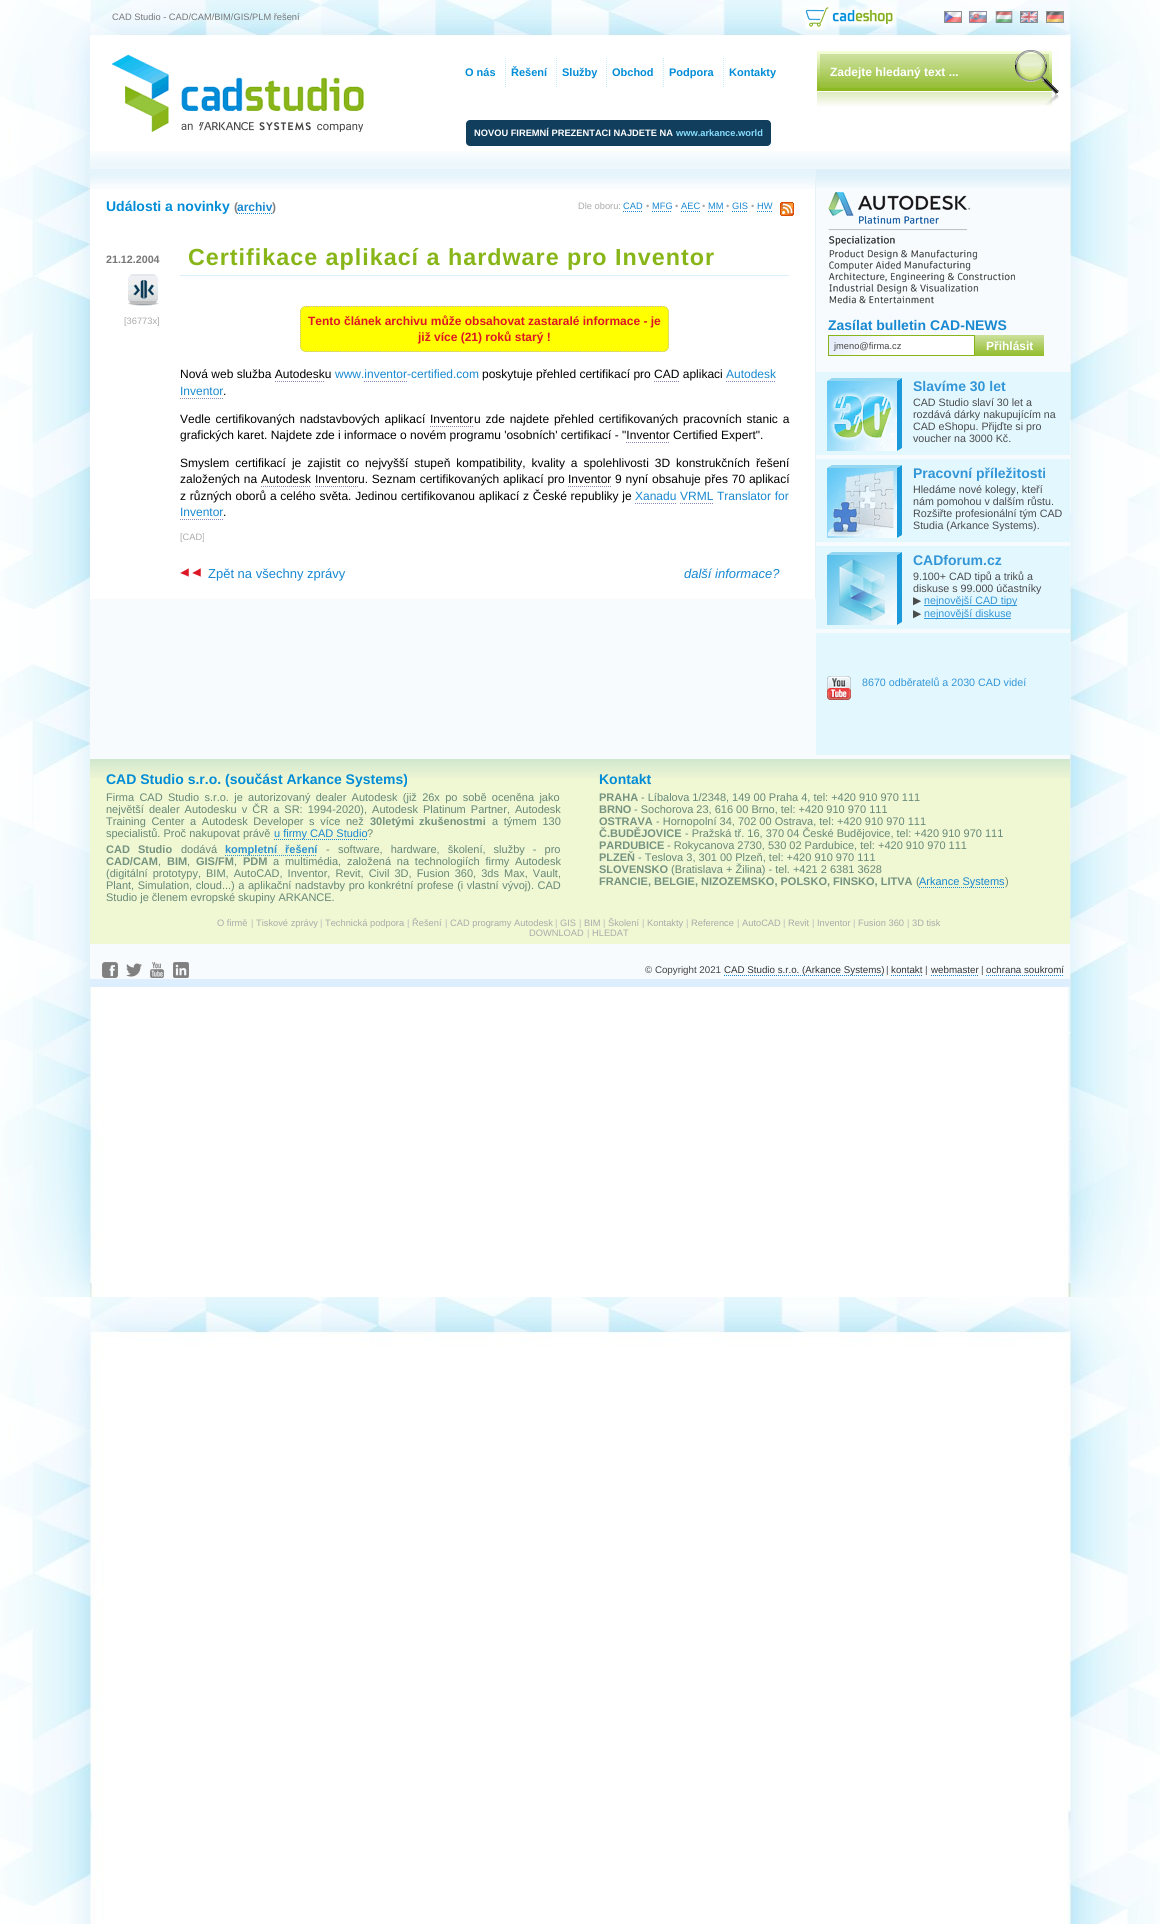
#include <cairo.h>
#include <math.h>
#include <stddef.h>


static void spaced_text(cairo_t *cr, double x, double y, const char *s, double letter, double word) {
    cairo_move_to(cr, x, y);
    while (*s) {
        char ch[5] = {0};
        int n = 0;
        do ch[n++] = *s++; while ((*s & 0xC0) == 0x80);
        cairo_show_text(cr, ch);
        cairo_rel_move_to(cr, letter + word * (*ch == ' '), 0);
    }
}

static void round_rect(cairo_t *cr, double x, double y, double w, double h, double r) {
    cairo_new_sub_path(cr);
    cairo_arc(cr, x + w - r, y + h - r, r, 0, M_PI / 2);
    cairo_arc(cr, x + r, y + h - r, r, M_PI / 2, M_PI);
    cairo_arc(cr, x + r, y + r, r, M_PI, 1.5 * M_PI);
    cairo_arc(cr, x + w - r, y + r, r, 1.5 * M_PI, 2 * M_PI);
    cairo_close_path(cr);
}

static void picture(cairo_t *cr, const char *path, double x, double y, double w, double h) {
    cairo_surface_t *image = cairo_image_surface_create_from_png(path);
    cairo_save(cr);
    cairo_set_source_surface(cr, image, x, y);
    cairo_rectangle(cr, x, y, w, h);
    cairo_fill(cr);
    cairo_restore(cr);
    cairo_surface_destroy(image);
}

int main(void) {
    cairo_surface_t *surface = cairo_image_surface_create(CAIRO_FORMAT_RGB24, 1160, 1924);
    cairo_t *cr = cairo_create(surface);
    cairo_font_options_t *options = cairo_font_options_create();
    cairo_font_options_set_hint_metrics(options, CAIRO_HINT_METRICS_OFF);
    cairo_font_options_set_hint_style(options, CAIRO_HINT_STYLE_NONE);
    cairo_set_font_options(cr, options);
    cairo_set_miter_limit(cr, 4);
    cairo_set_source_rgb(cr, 1, 1, 1);
    cairo_paint(cr);
    picture(cr, "img1.png", 0, 987, 1160, 937);
    picture(cr, "img2.png", 0, 0, 1160, 987);
    cairo_select_font_face(cr, "Liberation Sans", CAIRO_FONT_SLANT_NORMAL, CAIRO_FONT_WEIGHT_NORMAL);
    cairo_set_font_size(cr, 9.3);
    cairo_set_source_rgb(cr, 0.467, 0.467, 0.467);
    cairo_move_to(cr, 112, 20);
    cairo_show_text(cr, "CAD Studio - CAD/CAM/BIM/GIS/PLM řešení");
    picture(cr, "img3.png", 802, 4, 94, 26);
    picture(cr, "img4.png", 944, 11, 18, 12);
    picture(cr, "img5.png", 969, 11, 18, 12);
    picture(cr, "img6.png", 995, 11, 18, 12);
    picture(cr, "img7.png", 1020, 11, 18, 12);
    picture(cr, "img8.png", 1046, 11, 18, 12);
    cairo_set_source_rgb(cr, 1, 1, 1);
    cairo_rectangle(cr, 90, 36, 980, 115);
    cairo_fill(cr);
    cairo_select_font_face(cr, "Liberation Sans", CAIRO_FONT_SLANT_NORMAL, CAIRO_FONT_WEIGHT_BOLD);
    cairo_set_font_size(cr, 11);
    cairo_set_source_rgb(cr, 0, 0.549, 0.839);
    cairo_move_to(cr, 465, 76);
    cairo_show_text(cr, "O nás");
    cairo_move_to(cr, 511, 76);
    cairo_show_text(cr, "Řešení");
    cairo_new_path(cr);
    cairo_move_to(cr, 505.5, 58);
    cairo_line_to(cr, 505.5, 88);
    cairo_set_source_rgb(cr, 0.776, 0.925, 0.976);
    cairo_set_line_width(cr, 1);
    cairo_set_dash(cr, (double[]){1, 1}, 2, 0);
    cairo_stroke(cr);
    cairo_set_source_rgb(cr, 0, 0.549, 0.839);
    cairo_move_to(cr, 562, 76);
    cairo_show_text(cr, "Služby");
    cairo_new_path(cr);
    cairo_move_to(cr, 556.5, 58);
    cairo_line_to(cr, 556.5, 88);
    cairo_set_source_rgb(cr, 0.776, 0.925, 0.976);
    cairo_stroke(cr);
    cairo_set_source_rgb(cr, 0, 0.549, 0.839);
    cairo_move_to(cr, 612, 76);
    cairo_show_text(cr, "Obchod");
    cairo_new_path(cr);
    cairo_move_to(cr, 606.5, 58);
    cairo_line_to(cr, 606.5, 88);
    cairo_set_source_rgb(cr, 0.776, 0.925, 0.976);
    cairo_stroke(cr);
    cairo_set_source_rgb(cr, 0, 0.549, 0.839);
    cairo_move_to(cr, 669, 76);
    cairo_show_text(cr, "Podpora");
    cairo_new_path(cr);
    cairo_move_to(cr, 663.5, 58);
    cairo_line_to(cr, 663.5, 88);
    cairo_set_source_rgb(cr, 0.776, 0.925, 0.976);
    cairo_stroke(cr);
    cairo_set_source_rgb(cr, 0, 0.549, 0.839);
    cairo_move_to(cr, 729, 76);
    cairo_show_text(cr, "Kontakty");
    cairo_new_path(cr);
    cairo_move_to(cr, 723.5, 58);
    cairo_line_to(cr, 723.5, 88);
    cairo_set_source_rgb(cr, 0.776, 0.925, 0.976);
    cairo_stroke(cr);
    picture(cr, "img9.png", 817, 50, 242, 56);
    cairo_set_font_size(cr, 12);
    cairo_set_source_rgb(cr, 1, 1, 1);
    cairo_move_to(cr, 830, 76);
    cairo_show_text(cr, "Zadejte hledaný text ...");
    cairo_set_source_rgb(cr, 0.965, 0.984, 0.996);
    cairo_rectangle(cr, 90, 188, 980, 791);
    cairo_fill(cr);
    cairo_set_source_rgb(cr, 1, 1, 1);
    cairo_rectangle(cr, 90, 189, 725, 410);
    cairo_fill(cr);
    picture(cr, "img10.png", 90, 169, 725, 20);
    cairo_set_source_rgb(cr, 0.902, 0.957, 0.965);
    cairo_rectangle(cr, 815, 169, 1, 430);
    cairo_fill(cr);
    cairo_set_font_size(cr, 14);
    cairo_set_source_rgb(cr, 0, 0.549, 0.839);
    cairo_move_to(cr, 106, 211);
    cairo_show_text(cr, "Události a novinky");
    cairo_set_font_size(cr, 12);
    cairo_set_source_rgb(cr, 0.502, 0.502, 0.502);
    cairo_move_to(cr, 234, 211);
    cairo_show_text(cr, "(");
    cairo_new_path(cr);
    cairo_move_to(cr, 237, 213.5);
    cairo_line_to(cr, 272, 213.5);
    cairo_set_source_rgb(cr, 0.094, 0.533, 0.816);
    cairo_stroke(cr);
    cairo_move_to(cr, 237, 211);
    cairo_show_text(cr, "archiv");
    cairo_set_source_rgb(cr, 0.502, 0.502, 0.502);
    cairo_move_to(cr, 272, 211);
    cairo_show_text(cr, ")");
    cairo_select_font_face(cr, "Liberation Sans", CAIRO_FONT_SLANT_NORMAL, CAIRO_FONT_WEIGHT_NORMAL);
    cairo_set_font_size(cr, 9.3);
    cairo_set_source_rgb(cr, 0.667, 0.667, 0.667);
    cairo_move_to(cr, 578, 209);
    cairo_show_text(cr, "Dle oboru:");
    cairo_set_source_rgb(cr, 0.094, 0.533, 0.816);
    cairo_move_to(cr, 623, 209);
    cairo_show_text(cr, "CAD");
    cairo_new_path(cr);
    cairo_move_to(cr, 623, 211.5);
    cairo_line_to(cr, 643, 211.5);
    cairo_stroke(cr);
    cairo_set_source_rgb(cr, 0.667, 0.667, 0.667);
    cairo_move_to(cr, 646, 209);
    cairo_show_text(cr, "•");
    cairo_set_source_rgb(cr, 0.094, 0.533, 0.816);
    cairo_move_to(cr, 652, 209);
    cairo_show_text(cr, "MFG");
    cairo_new_path(cr);
    cairo_move_to(cr, 652, 211.5);
    cairo_line_to(cr, 672, 211.5);
    cairo_stroke(cr);
    cairo_set_source_rgb(cr, 0.667, 0.667, 0.667);
    cairo_move_to(cr, 675, 209);
    cairo_show_text(cr, "•");
    cairo_set_source_rgb(cr, 0.094, 0.533, 0.816);
    cairo_move_to(cr, 681, 209);
    cairo_show_text(cr, "AEC");
    cairo_new_path(cr);
    cairo_move_to(cr, 681, 211.5);
    cairo_line_to(cr, 700, 211.5);
    cairo_stroke(cr);
    cairo_set_source_rgb(cr, 0.667, 0.667, 0.667);
    cairo_move_to(cr, 702, 209);
    cairo_show_text(cr, "•");
    cairo_set_source_rgb(cr, 0.094, 0.533, 0.816);
    cairo_move_to(cr, 708, 209);
    cairo_show_text(cr, "MM");
    cairo_new_path(cr);
    cairo_move_to(cr, 708, 211.5);
    cairo_line_to(cr, 724, 211.5);
    cairo_stroke(cr);
    cairo_set_source_rgb(cr, 0.667, 0.667, 0.667);
    cairo_move_to(cr, 726, 209);
    cairo_show_text(cr, "•");
    cairo_set_source_rgb(cr, 0.094, 0.533, 0.816);
    cairo_move_to(cr, 732, 209);
    cairo_show_text(cr, "GIS");
    cairo_new_path(cr);
    cairo_move_to(cr, 732, 211.5);
    cairo_line_to(cr, 748, 211.5);
    cairo_stroke(cr);
    cairo_set_source_rgb(cr, 0.667, 0.667, 0.667);
    cairo_move_to(cr, 751, 209);
    cairo_show_text(cr, "•");
    cairo_set_source_rgb(cr, 0.094, 0.533, 0.816);
    cairo_move_to(cr, 757, 209);
    cairo_show_text(cr, "HW");
    cairo_new_path(cr);
    cairo_move_to(cr, 757, 211.5);
    cairo_line_to(cr, 772, 211.5);
    cairo_stroke(cr);
    picture(cr, "img11.png", 780, 202, 14, 14);
    cairo_select_font_face(cr, "Liberation Sans", CAIRO_FONT_SLANT_NORMAL, CAIRO_FONT_WEIGHT_BOLD);
    cairo_set_font_size(cr, 10.7);
    cairo_set_source_rgb(cr, 0.467, 0.467, 0.467);
    cairo_move_to(cr, 106, 263);
    cairo_show_text(cr, "21.12.2004");
    picture(cr, "img12.png", 128, 274, 31, 32);
    cairo_select_font_face(cr, "Liberation Sans", CAIRO_FONT_SLANT_NORMAL, CAIRO_FONT_WEIGHT_NORMAL);
    cairo_set_font_size(cr, 9.3);
    cairo_set_source_rgb(cr, 0.667, 0.667, 0.667);
    cairo_move_to(cr, 124, 324);
    cairo_show_text(cr, "[36773x]");
    cairo_set_source_rgb(cr, 0.847, 0.941, 0.988);
    cairo_rectangle(cr, 180, 275, 609, 1);
    cairo_fill(cr);
    cairo_select_font_face(cr, "Liberation Sans", CAIRO_FONT_SLANT_NORMAL, CAIRO_FONT_WEIGHT_BOLD);
    cairo_set_font_size(cr, 23.3);
    cairo_set_source_rgb(cr, 0.533, 0.714, 0.098);
    spaced_text(cr, 188, 265, "Certifikace aplikací a hardware pro Inventor", 1, 0);
    cairo_set_source_rgb(cr, 1, 1, 0);
    round_rect(cr, 300, 306, 369, 46, 6);
    cairo_fill(cr);
    cairo_new_path(cr);
    cairo_move_to(cr, 306, 306.5);
    cairo_line_to(cr, 663, 306.5);
    cairo_curve_to(cr, 666, 306.5, 668.5, 309, 668.5, 312);
    cairo_line_to(cr, 668.5, 346);
    cairo_curve_to(cr, 668.5, 349, 666, 351.5, 663, 351.5);
    cairo_line_to(cr, 306, 351.5);
    cairo_curve_to(cr, 303, 351.5, 300.5, 349, 300.5, 346);
    cairo_line_to(cr, 300.5, 312);
    cairo_curve_to(cr, 300.5, 309, 303, 306.5, 306, 306.5);
    cairo_close_path(cr);
    cairo_set_source_rgb(cr, 0.733, 0.733, 0.733);
    cairo_stroke(cr);
    cairo_set_font_size(cr, 12);
    cairo_set_source_rgb(cr, 0.867, 0.086, 0.145);
    cairo_move_to(cr, 308, 325);
    cairo_show_text(cr, "Tento článek archivu může obsahovat zastaralé informace - je");
    cairo_move_to(cr, 418, 341);
    cairo_show_text(cr, "již více (21) roků starý !");
    cairo_select_font_face(cr, "Liberation Sans", CAIRO_FONT_SLANT_NORMAL, CAIRO_FONT_WEIGHT_NORMAL);
    cairo_set_source_rgb(cr, 0, 0, 0);
    cairo_move_to(cr, 180, 378);
    cairo_show_text(cr, "Nová web služba Autodesku");
    cairo_set_source_rgb(cr, 0.094, 0.533, 0.816);
    cairo_move_to(cr, 335, 378);
    cairo_show_text(cr, "www.inventor-certified.com");
    cairo_new_path(cr);
    cairo_move_to(cr, 364, 381.5);
    cairo_line_to(cr, 407, 381.5);
    cairo_set_source_rgb(cr, 0.533, 0.533, 0.733);
    cairo_stroke(cr);
    cairo_set_source_rgb(cr, 0, 0, 0);
    cairo_move_to(cr, 482, 378);
    cairo_show_text(cr, "poskytuje přehled certifikací pro CAD aplikaci");
    cairo_set_source_rgb(cr, 0.094, 0.533, 0.816);
    cairo_move_to(cr, 726, 378);
    cairo_show_text(cr, "Autodesk");
    cairo_new_path(cr);
    cairo_move_to(cr, 726, 381.5);
    cairo_line_to(cr, 776, 381.5);
    cairo_set_source_rgb(cr, 0.533, 0.533, 0.733);
    cairo_stroke(cr);
    cairo_new_path(cr);
    cairo_move_to(cr, 275, 381.5);
    cairo_line_to(cr, 325, 381.5);
    cairo_stroke(cr);
    cairo_new_path(cr);
    cairo_move_to(cr, 654, 381.5);
    cairo_line_to(cr, 680, 381.5);
    cairo_stroke(cr);
    cairo_set_source_rgb(cr, 0.094, 0.533, 0.816);
    cairo_move_to(cr, 180, 395);
    cairo_show_text(cr, "Inventor");
    cairo_new_path(cr);
    cairo_move_to(cr, 180, 398.5);
    cairo_line_to(cr, 223, 398.5);
    cairo_set_source_rgb(cr, 0.533, 0.533, 0.733);
    cairo_stroke(cr);
    cairo_set_source_rgb(cr, 0, 0, 0);
    cairo_move_to(cr, 223, 395);
    cairo_show_text(cr, ".");
    spaced_text(cr, 180, 423, "Vedle certifikovaných nadstavbových aplikací", 0, 1.5);
    cairo_move_to(cr, 430, 423);
    cairo_show_text(cr, "Inventor");
    cairo_new_path(cr);
    cairo_move_to(cr, 430, 426.5);
    cairo_line_to(cr, 474, 426.5);
    cairo_set_source_rgb(cr, 0.533, 0.533, 0.733);
    cairo_stroke(cr);
    cairo_set_source_rgb(cr, 0, 0, 0);
    spaced_text(cr, 474, 423, "u zde najdete přehled certifikovaných pracovních stanic a", 0, 1.5);
    cairo_move_to(cr, 180, 439);
    cairo_show_text(cr, "grafických karet. Najdete zde i informace o novém programu 'osobních' certifikací - \"Inventor Certified Expert\".");
    cairo_new_path(cr);
    cairo_move_to(cr, 626, 442.5);
    cairo_line_to(cr, 670, 442.5);
    cairo_set_source_rgb(cr, 0.533, 0.533, 0.733);
    cairo_stroke(cr);
    cairo_set_source_rgb(cr, 0, 0, 0);
    spaced_text(cr, 180, 467, "Smyslem certifikací je zajistit co nejvyšší stupeň kompatibility, kvality a spolehlivosti 3D konstrukčních řešení", 0, 2.6);
    spaced_text(cr, 180, 483, "založených na", 0, 0.5);
    cairo_move_to(cr, 261, 483);
    cairo_show_text(cr, "Autodesk");
    cairo_new_path(cr);
    cairo_move_to(cr, 261, 486.5);
    cairo_line_to(cr, 311, 486.5);
    cairo_set_source_rgb(cr, 0.533, 0.533, 0.733);
    cairo_stroke(cr);
    cairo_set_source_rgb(cr, 0, 0, 0);
    cairo_move_to(cr, 315, 483);
    cairo_show_text(cr, "Inventor");
    cairo_new_path(cr);
    cairo_move_to(cr, 315, 486.5);
    cairo_line_to(cr, 358, 486.5);
    cairo_set_source_rgb(cr, 0.533, 0.533, 0.733);
    cairo_stroke(cr);
    cairo_set_source_rgb(cr, 0, 0, 0);
    spaced_text(cr, 358, 483, "u. Seznam certifikovaných aplikací pro", 0, 0.5);
    cairo_move_to(cr, 568, 483);
    cairo_show_text(cr, "Inventor");
    cairo_new_path(cr);
    cairo_move_to(cr, 568, 486.5);
    cairo_line_to(cr, 611, 486.5);
    cairo_set_source_rgb(cr, 0.533, 0.533, 0.733);
    cairo_stroke(cr);
    cairo_set_source_rgb(cr, 0, 0, 0);
    spaced_text(cr, 615, 483, "9 nyní obsahuje přes 70 aplikací", 0, 0.5);
    spaced_text(cr, 180, 500, "z různých oborů a celého světa. Jedinou certifikovanou aplikací z České republiky je", 0, 0.4);
    cairo_set_source_rgb(cr, 0.094, 0.533, 0.816);
    cairo_move_to(cr, 635, 500);
    cairo_show_text(cr, "Xanadu");
    cairo_new_path(cr);
    cairo_move_to(cr, 635, 503.5);
    cairo_line_to(cr, 676, 503.5);
    cairo_set_source_rgb(cr, 0.533, 0.533, 0.733);
    cairo_stroke(cr);
    cairo_set_source_rgb(cr, 0.094, 0.533, 0.816);
    cairo_move_to(cr, 680, 500);
    cairo_show_text(cr, "VRML");
    cairo_new_path(cr);
    cairo_move_to(cr, 680, 503.5);
    cairo_line_to(cr, 714, 503.5);
    cairo_set_source_rgb(cr, 0.533, 0.533, 0.733);
    cairo_stroke(cr);
    cairo_set_source_rgb(cr, 0.094, 0.533, 0.816);
    spaced_text(cr, 717, 500, "Translator for", 0, 0.4);
    cairo_move_to(cr, 180, 516);
    cairo_show_text(cr, "Inventor");
    cairo_new_path(cr);
    cairo_move_to(cr, 180, 519.5);
    cairo_line_to(cr, 223, 519.5);
    cairo_set_source_rgb(cr, 0.533, 0.533, 0.733);
    cairo_stroke(cr);
    cairo_set_source_rgb(cr, 0, 0, 0);
    cairo_move_to(cr, 223, 516);
    cairo_show_text(cr, ".");
    cairo_set_font_size(cr, 9.3);
    cairo_set_source_rgb(cr, 0.667, 0.667, 0.667);
    cairo_move_to(cr, 180, 540);
    cairo_show_text(cr, "[CAD]");
    picture(cr, "img13.png", 180, 568, 9, 9);
    picture(cr, "img13.png", 192, 568, 9, 9);
    cairo_set_font_size(cr, 13);
    cairo_set_source_rgb(cr, 0.094, 0.533, 0.816);
    cairo_move_to(cr, 208, 578);
    cairo_show_text(cr, "Zpět na všechny zprávy");
    cairo_select_font_face(cr, "Liberation Sans", CAIRO_FONT_SLANT_ITALIC, CAIRO_FONT_WEIGHT_NORMAL);
    cairo_move_to(cr, 684, 578);
    cairo_show_text(cr, "další informace?");
    picture(cr, "img14.png", 816, 169, 254, 19);
    picture(cr, "img15.png", 828, 192, 187, 112);
    cairo_select_font_face(cr, "Liberation Sans", CAIRO_FONT_SLANT_NORMAL, CAIRO_FONT_WEIGHT_BOLD);
    cairo_set_font_size(cr, 14);
    cairo_move_to(cr, 828, 330);
    cairo_show_text(cr, "Zasílat bulletin CAD-NEWS");
    cairo_set_source_rgb(cr, 1, 1, 1);
    cairo_rectangle(cr, 894, 336, 80, 19);
    cairo_fill(cr);
    picture(cr, "img16.png", 829, 336, 65, 19);
    cairo_rectangle(cr, 828.5, 335.5, 146, 20);
    cairo_set_source_rgb(cr, 0.533, 0.714, 0.098);
    cairo_set_dash(cr, NULL, 0, 0);
    cairo_stroke(cr);
    cairo_select_font_face(cr, "Liberation Sans", CAIRO_FONT_SLANT_NORMAL, CAIRO_FONT_WEIGHT_NORMAL);
    cairo_set_font_size(cr, 9.3);
    cairo_set_source_rgb(cr, 0.267, 0.267, 0.267);
    cairo_move_to(cr, 834, 349);
    cairo_show_text(cr, "jmeno@firma.cz");
    picture(cr, "img17.png", 975, 335, 69, 21);
    cairo_select_font_face(cr, "Liberation Sans", CAIRO_FONT_SLANT_NORMAL, CAIRO_FONT_WEIGHT_BOLD);
    cairo_set_font_size(cr, 12);
    cairo_set_source_rgb(cr, 1, 1, 1);
    cairo_move_to(cr, 986, 350);
    cairo_show_text(cr, "Přihlásit");
    cairo_set_source_rgb(cr, 0.89, 0.965, 1);
    cairo_rectangle(cr, 816, 372, 254, 83);
    cairo_fill(cr);
    picture(cr, "img18.png", 827, 378, 75, 73);
    cairo_set_font_size(cr, 14);
    cairo_set_source_rgb(cr, 0.2, 0.588, 0.839);
    cairo_move_to(cr, 913, 391);
    cairo_show_text(cr, "Slavíme 30 let");
    cairo_select_font_face(cr, "Liberation Sans", CAIRO_FONT_SLANT_NORMAL, CAIRO_FONT_WEIGHT_NORMAL);
    cairo_set_font_size(cr, 10.7);
    cairo_set_source_rgb(cr, 0.29, 0.294, 0.294);
    cairo_move_to(cr, 913, 406);
    cairo_show_text(cr, "CAD Studio slaví 30 let a");
    cairo_move_to(cr, 913, 418);
    cairo_show_text(cr, "rozdává dárky nakupujícím na");
    cairo_move_to(cr, 913, 430);
    cairo_show_text(cr, "CAD eShopu. Přijďte si pro");
    cairo_move_to(cr, 913, 442);
    cairo_show_text(cr, "voucher na 3000 Kč.");
    cairo_set_source_rgb(cr, 0.89, 0.965, 1);
    cairo_rectangle(cr, 816, 459, 254, 83);
    cairo_fill(cr);
    picture(cr, "img19.png", 827, 465, 75, 73);
    cairo_select_font_face(cr, "Liberation Sans", CAIRO_FONT_SLANT_NORMAL, CAIRO_FONT_WEIGHT_BOLD);
    cairo_set_font_size(cr, 14);
    cairo_set_source_rgb(cr, 0.2, 0.588, 0.839);
    cairo_move_to(cr, 913, 478);
    cairo_show_text(cr, "Pracovní příležitosti");
    cairo_select_font_face(cr, "Liberation Sans", CAIRO_FONT_SLANT_NORMAL, CAIRO_FONT_WEIGHT_NORMAL);
    cairo_set_font_size(cr, 10.7);
    cairo_set_source_rgb(cr, 0.29, 0.294, 0.294);
    cairo_move_to(cr, 913, 493);
    cairo_show_text(cr, "Hledáme nové kolegy, kteří");
    cairo_move_to(cr, 913, 505);
    cairo_show_text(cr, "nám pomohou v dalším růstu.");
    cairo_move_to(cr, 913, 517);
    cairo_show_text(cr, "Rozšiřte profesionální tým CAD");
    cairo_move_to(cr, 913, 529);
    cairo_show_text(cr, "Studia (Arkance Systems).");
    cairo_set_source_rgb(cr, 0.89, 0.965, 1);
    cairo_rectangle(cr, 816, 546, 254, 83);
    cairo_fill(cr);
    picture(cr, "img20.png", 827, 552, 75, 73);
    cairo_select_font_face(cr, "Liberation Sans", CAIRO_FONT_SLANT_NORMAL, CAIRO_FONT_WEIGHT_BOLD);
    cairo_set_font_size(cr, 14);
    cairo_set_source_rgb(cr, 0.2, 0.588, 0.839);
    cairo_move_to(cr, 913, 565);
    cairo_show_text(cr, "CADforum.cz");
    cairo_select_font_face(cr, "Liberation Sans", CAIRO_FONT_SLANT_NORMAL, CAIRO_FONT_WEIGHT_NORMAL);
    cairo_set_font_size(cr, 10.7);
    cairo_set_source_rgb(cr, 0.29, 0.294, 0.294);
    cairo_move_to(cr, 913, 580);
    cairo_show_text(cr, "9.100+ CAD tipů a triků a");
    cairo_move_to(cr, 913, 592);
    cairo_show_text(cr, "diskuse s 99.000 účastníky");
    cairo_select_font_face(cr, "DejaVu Sans", CAIRO_FONT_SLANT_NORMAL, CAIRO_FONT_WEIGHT_NORMAL);
    cairo_move_to(cr, 913, 604);
    cairo_show_text(cr, "▶");
    cairo_set_source_rgb(cr, 0.2, 0.588, 0.839);
    cairo_rectangle(cr, 924, 605, 93, 1);
    cairo_fill(cr);
    cairo_select_font_face(cr, "Liberation Sans", CAIRO_FONT_SLANT_NORMAL, CAIRO_FONT_WEIGHT_NORMAL);
    cairo_move_to(cr, 924, 604);
    cairo_show_text(cr, "nejnovější CAD tipy");
    cairo_select_font_face(cr, "DejaVu Sans", CAIRO_FONT_SLANT_NORMAL, CAIRO_FONT_WEIGHT_NORMAL);
    cairo_set_source_rgb(cr, 0.29, 0.294, 0.294);
    cairo_move_to(cr, 913, 617);
    cairo_show_text(cr, "▶");
    cairo_set_source_rgb(cr, 0.2, 0.588, 0.839);
    cairo_rectangle(cr, 924, 618, 87, 1);
    cairo_fill(cr);
    cairo_select_font_face(cr, "Liberation Sans", CAIRO_FONT_SLANT_NORMAL, CAIRO_FONT_WEIGHT_NORMAL);
    cairo_move_to(cr, 924, 617);
    cairo_show_text(cr, "nejnovější diskuse");
    cairo_set_source_rgb(cr, 0.89, 0.965, 1);
    cairo_rectangle(cr, 816, 633, 254, 122);
    cairo_fill(cr);
    picture(cr, "img21.png", 827, 676, 24, 24);
    cairo_set_source_rgb(cr, 0.2, 0.588, 0.839);
    cairo_move_to(cr, 862, 686);
    cairo_show_text(cr, "8670 odběratelů a 2030 CAD videí");
    cairo_set_source_rgb(cr, 0.941, 0.965, 0.827);
    cairo_rectangle(cr, 90, 778, 980, 166);
    cairo_fill(cr);
    picture(cr, "img22.png", 90, 759, 980, 19);
    cairo_select_font_face(cr, "Liberation Sans", CAIRO_FONT_SLANT_NORMAL, CAIRO_FONT_WEIGHT_BOLD);
    cairo_set_font_size(cr, 14);
    cairo_set_source_rgb(cr, 0, 0.549, 0.839);
    cairo_move_to(cr, 106, 784);
    cairo_show_text(cr, "CAD Studio s.r.o. (součást Arkance Systems)");
    cairo_select_font_face(cr, "Liberation Sans", CAIRO_FONT_SLANT_NORMAL, CAIRO_FONT_WEIGHT_NORMAL);
    cairo_set_font_size(cr, 11);
    cairo_set_source_rgb(cr, 0.4, 0.533, 0.467);
    spaced_text(cr, 106, 801, "Firma CAD Studio s.r.o. je autorizovaný dealer Autodesk (již 26x po sobě oceněna jako", 0, 2.25);
    spaced_text(cr, 106, 813, "největší dealer Autodesku v ČR a SR: 1994-2020), Autodesk Platinum Partner, Autodesk", 0, 2);
    spaced_text(cr, 106, 825, "Training Center a Autodesk Developer", 0, 2.6);
    spaced_text(cr, 309, 825, "s více než", 0, 2.6);
    cairo_select_font_face(cr, "Liberation Sans", CAIRO_FONT_SLANT_NORMAL, CAIRO_FONT_WEIGHT_BOLD);
    cairo_set_source_rgb(cr, 0.455, 0.576, 0.502);
    spaced_text(cr, 370, 825, "30letými zkušenostmi", 0, 2);
    cairo_select_font_face(cr, "Liberation Sans", CAIRO_FONT_SLANT_NORMAL, CAIRO_FONT_WEIGHT_NORMAL);
    cairo_set_source_rgb(cr, 0.4, 0.533, 0.467);
    spaced_text(cr, 492, 825, "a týmem 130", 0, 2.6);
    cairo_move_to(cr, 106, 837);
    cairo_show_text(cr, "specialistů. Proč nakupovat právě");
    cairo_new_path(cr);
    cairo_move_to(cr, 274, 839.5);
    cairo_line_to(cr, 367, 839.5);
    cairo_set_source_rgb(cr, 0.094, 0.533, 0.816);
    cairo_set_dash(cr, (double[]){1, 1}, 2, 0);
    cairo_stroke(cr);
    cairo_move_to(cr, 274, 837);
    cairo_show_text(cr, "u firmy CAD Studio");
    cairo_set_source_rgb(cr, 0.4, 0.533, 0.467);
    cairo_move_to(cr, 367, 837);
    cairo_show_text(cr, "?");
    cairo_select_font_face(cr, "Liberation Sans", CAIRO_FONT_SLANT_NORMAL, CAIRO_FONT_WEIGHT_BOLD);
    cairo_set_source_rgb(cr, 0.455, 0.576, 0.502);
    spaced_text(cr, 106, 853, "CAD Studio", 0, 5);
    cairo_select_font_face(cr, "Liberation Sans", CAIRO_FONT_SLANT_NORMAL, CAIRO_FONT_WEIGHT_NORMAL);
    cairo_set_source_rgb(cr, 0.4, 0.533, 0.467);
    cairo_move_to(cr, 181, 853);
    cairo_show_text(cr, "dodává");
    cairo_new_path(cr);
    cairo_move_to(cr, 225, 855.5);
    cairo_line_to(cr, 317, 855.5);
    cairo_set_source_rgb(cr, 0.18, 0.576, 0.816);
    cairo_stroke(cr);
    cairo_select_font_face(cr, "Liberation Sans", CAIRO_FONT_SLANT_NORMAL, CAIRO_FONT_WEIGHT_BOLD);
    spaced_text(cr, 225, 853, "kompletní řešení", 0, 5);
    cairo_select_font_face(cr, "Liberation Sans", CAIRO_FONT_SLANT_NORMAL, CAIRO_FONT_WEIGHT_NORMAL);
    cairo_set_source_rgb(cr, 0.4, 0.533, 0.467);
    cairo_move_to(cr, 326, 853);
    cairo_show_text(cr, "-");
    spaced_text(cr, 338, 853, "software, hardware, školení, služby - pro", 0, 5);
    cairo_select_font_face(cr, "Liberation Sans", CAIRO_FONT_SLANT_NORMAL, CAIRO_FONT_WEIGHT_BOLD);
    cairo_set_source_rgb(cr, 0.455, 0.576, 0.502);
    cairo_move_to(cr, 106, 865);
    cairo_show_text(cr, "CAD/CAM");
    cairo_select_font_face(cr, "Liberation Sans", CAIRO_FONT_SLANT_NORMAL, CAIRO_FONT_WEIGHT_NORMAL);
    cairo_set_source_rgb(cr, 0.4, 0.533, 0.467);
    cairo_move_to(cr, 158, 865);
    cairo_show_text(cr, ",");
    cairo_select_font_face(cr, "Liberation Sans", CAIRO_FONT_SLANT_NORMAL, CAIRO_FONT_WEIGHT_BOLD);
    cairo_set_source_rgb(cr, 0.455, 0.576, 0.502);
    cairo_move_to(cr, 167, 865);
    cairo_show_text(cr, "BIM");
    cairo_select_font_face(cr, "Liberation Sans", CAIRO_FONT_SLANT_NORMAL, CAIRO_FONT_WEIGHT_NORMAL);
    cairo_set_source_rgb(cr, 0.4, 0.533, 0.467);
    cairo_move_to(cr, 187, 865);
    cairo_show_text(cr, ",");
    cairo_select_font_face(cr, "Liberation Sans", CAIRO_FONT_SLANT_NORMAL, CAIRO_FONT_WEIGHT_BOLD);
    cairo_set_source_rgb(cr, 0.455, 0.576, 0.502);
    cairo_move_to(cr, 196, 865);
    cairo_show_text(cr, "GIS/FM");
    cairo_select_font_face(cr, "Liberation Sans", CAIRO_FONT_SLANT_NORMAL, CAIRO_FONT_WEIGHT_NORMAL);
    cairo_set_source_rgb(cr, 0.4, 0.533, 0.467);
    cairo_move_to(cr, 234, 865);
    cairo_show_text(cr, ",");
    cairo_select_font_face(cr, "Liberation Sans", CAIRO_FONT_SLANT_NORMAL, CAIRO_FONT_WEIGHT_BOLD);
    cairo_set_source_rgb(cr, 0.455, 0.576, 0.502);
    cairo_move_to(cr, 243, 865);
    cairo_show_text(cr, "PDM");
    cairo_select_font_face(cr, "Liberation Sans", CAIRO_FONT_SLANT_NORMAL, CAIRO_FONT_WEIGHT_NORMAL);
    cairo_set_source_rgb(cr, 0.4, 0.533, 0.467);
    spaced_text(cr, 273, 865, "a multimédia, založená na technologiích firmy Autodesk", 0, 2.75);
    spaced_text(cr, 106, 877, "(digitální prototypy, BIM, AutoCAD, Inventor, Revit, Civil 3D, Fusion 360, 3ds Max, Vault,", 0, 2);
    spaced_text(cr, 106, 889, "Plant, Simulation, cloud...) a", 0, 0.5);
    spaced_text(cr, 248, 889, "aplikační nadstavby pro konkrétní profese (i vlastní vývoj). CAD", 0, 0.5);
    cairo_move_to(cr, 106, 901);
    cairo_show_text(cr, "Studio je členem evropské skupiny ARKANCE.");
    cairo_select_font_face(cr, "Liberation Sans", CAIRO_FONT_SLANT_NORMAL, CAIRO_FONT_WEIGHT_BOLD);
    cairo_set_font_size(cr, 14);
    cairo_set_source_rgb(cr, 0, 0.549, 0.839);
    cairo_move_to(cr, 599, 784);
    cairo_show_text(cr, "Kontakt");
    cairo_set_font_size(cr, 11);
    cairo_set_source_rgb(cr, 0.455, 0.576, 0.502);
    cairo_move_to(cr, 599, 801);
    cairo_show_text(cr, "PRAHA");
    cairo_select_font_face(cr, "Liberation Sans", CAIRO_FONT_SLANT_NORMAL, CAIRO_FONT_WEIGHT_NORMAL);
    cairo_set_source_rgb(cr, 0.4, 0.533, 0.467);
    cairo_move_to(cr, 641, 801);
    cairo_show_text(cr, "- Líbalova 1/2348, 149 00 Praha 4, tel: +420 910 970 111");
    cairo_select_font_face(cr, "Liberation Sans", CAIRO_FONT_SLANT_NORMAL, CAIRO_FONT_WEIGHT_BOLD);
    cairo_set_source_rgb(cr, 0.455, 0.576, 0.502);
    cairo_move_to(cr, 599, 813);
    cairo_show_text(cr, "BRNO");
    cairo_select_font_face(cr, "Liberation Sans", CAIRO_FONT_SLANT_NORMAL, CAIRO_FONT_WEIGHT_NORMAL);
    cairo_set_source_rgb(cr, 0.4, 0.533, 0.467);
    cairo_move_to(cr, 634, 813);
    cairo_show_text(cr, "- Sochorova 23, 616 00 Brno, tel: +420 910 970 111");
    cairo_select_font_face(cr, "Liberation Sans", CAIRO_FONT_SLANT_NORMAL, CAIRO_FONT_WEIGHT_BOLD);
    cairo_set_source_rgb(cr, 0.455, 0.576, 0.502);
    cairo_move_to(cr, 599, 825);
    cairo_show_text(cr, "OSTRAVA");
    cairo_select_font_face(cr, "Liberation Sans", CAIRO_FONT_SLANT_NORMAL, CAIRO_FONT_WEIGHT_NORMAL);
    cairo_set_source_rgb(cr, 0.4, 0.533, 0.467);
    cairo_move_to(cr, 656, 825);
    cairo_show_text(cr, "- Hornopolní 34, 702 00 Ostrava, tel: +420 910 970 111");
    cairo_select_font_face(cr, "Liberation Sans", CAIRO_FONT_SLANT_NORMAL, CAIRO_FONT_WEIGHT_BOLD);
    cairo_set_source_rgb(cr, 0.455, 0.576, 0.502);
    cairo_move_to(cr, 599, 837);
    cairo_show_text(cr, "Č.BUDĚJOVICE");
    cairo_select_font_face(cr, "Liberation Sans", CAIRO_FONT_SLANT_NORMAL, CAIRO_FONT_WEIGHT_NORMAL);
    cairo_set_source_rgb(cr, 0.4, 0.533, 0.467);
    cairo_move_to(cr, 685, 837);
    cairo_show_text(cr, "- Pražská tř. 16, 370 04 České Budějovice, tel: +420 910 970 111");
    cairo_select_font_face(cr, "Liberation Sans", CAIRO_FONT_SLANT_NORMAL, CAIRO_FONT_WEIGHT_BOLD);
    cairo_set_source_rgb(cr, 0.455, 0.576, 0.502);
    cairo_move_to(cr, 599, 849);
    cairo_show_text(cr, "PARDUBICE");
    cairo_select_font_face(cr, "Liberation Sans", CAIRO_FONT_SLANT_NORMAL, CAIRO_FONT_WEIGHT_NORMAL);
    cairo_set_source_rgb(cr, 0.4, 0.533, 0.467);
    cairo_move_to(cr, 667, 849);
    cairo_show_text(cr, "- Rokycanova 2730, 530 02 Pardubice, tel: +420 910 970 111");
    cairo_select_font_face(cr, "Liberation Sans", CAIRO_FONT_SLANT_NORMAL, CAIRO_FONT_WEIGHT_BOLD);
    cairo_set_source_rgb(cr, 0.455, 0.576, 0.502);
    cairo_move_to(cr, 599, 861);
    cairo_show_text(cr, "PLZEŇ");
    cairo_select_font_face(cr, "Liberation Sans", CAIRO_FONT_SLANT_NORMAL, CAIRO_FONT_WEIGHT_NORMAL);
    cairo_set_source_rgb(cr, 0.4, 0.533, 0.467);
    cairo_move_to(cr, 638, 861);
    cairo_show_text(cr, "- Teslova 3, 301 00 Plzeň, tel: +420 910 970 111");
    cairo_select_font_face(cr, "Liberation Sans", CAIRO_FONT_SLANT_NORMAL, CAIRO_FONT_WEIGHT_BOLD);
    cairo_set_source_rgb(cr, 0.455, 0.576, 0.502);
    cairo_move_to(cr, 599, 873);
    cairo_show_text(cr, "SLOVENSKO");
    cairo_select_font_face(cr, "Liberation Sans", CAIRO_FONT_SLANT_NORMAL, CAIRO_FONT_WEIGHT_NORMAL);
    cairo_set_source_rgb(cr, 0.4, 0.533, 0.467);
    cairo_move_to(cr, 671, 873);
    cairo_show_text(cr, "(Bratislava + Žilina) - tel. +421 2 6381 3628");
    cairo_select_font_face(cr, "Liberation Sans", CAIRO_FONT_SLANT_NORMAL, CAIRO_FONT_WEIGHT_BOLD);
    cairo_set_source_rgb(cr, 0.455, 0.576, 0.502);
    cairo_move_to(cr, 599, 885);
    cairo_show_text(cr, "FRANCIE, BELGIE, NIZOZEMSKO, POLSKO, FINSKO, LITVA");
    cairo_select_font_face(cr, "Liberation Sans", CAIRO_FONT_SLANT_NORMAL, CAIRO_FONT_WEIGHT_NORMAL);
    cairo_set_source_rgb(cr, 0.4, 0.533, 0.467);
    cairo_move_to(cr, 916, 885);
    cairo_show_text(cr, "(");
    cairo_new_path(cr);
    cairo_move_to(cr, 919, 887.5);
    cairo_line_to(cr, 1005, 887.5);
    cairo_set_source_rgb(cr, 0.094, 0.533, 0.816);
    cairo_stroke(cr);
    cairo_move_to(cr, 919, 885);
    cairo_show_text(cr, "Arkance Systems");
    cairo_set_source_rgb(cr, 0.4, 0.533, 0.467);
    cairo_move_to(cr, 1005, 885);
    cairo_show_text(cr, ")");
    cairo_set_font_size(cr, 9.3);
    cairo_set_source_rgb(cr, 0.667, 0.667, 0.667);
    cairo_move_to(cr, 217, 926);
    cairo_show_text(cr, "O firmě");
    cairo_set_source_rgb(cr, 0.733, 0.733, 0.733);
    cairo_move_to(cr, 251, 926);
    cairo_show_text(cr, "|");
    cairo_set_source_rgb(cr, 0.667, 0.667, 0.667);
    cairo_move_to(cr, 256, 926);
    cairo_show_text(cr, "Tiskové zprávy");
    cairo_set_source_rgb(cr, 0.733, 0.733, 0.733);
    cairo_move_to(cr, 320, 926);
    cairo_show_text(cr, "|");
    cairo_set_source_rgb(cr, 0.667, 0.667, 0.667);
    cairo_move_to(cr, 325, 926);
    cairo_show_text(cr, "Technická podpora");
    cairo_set_source_rgb(cr, 0.733, 0.733, 0.733);
    cairo_move_to(cr, 407, 926);
    cairo_show_text(cr, "|");
    cairo_set_source_rgb(cr, 0.667, 0.667, 0.667);
    cairo_move_to(cr, 412, 926);
    cairo_show_text(cr, "Řešení");
    cairo_set_source_rgb(cr, 0.733, 0.733, 0.733);
    cairo_move_to(cr, 445, 926);
    cairo_show_text(cr, "|");
    cairo_set_source_rgb(cr, 0.667, 0.667, 0.667);
    cairo_move_to(cr, 450, 926);
    cairo_show_text(cr, "CAD programy Autodesk");
    cairo_set_source_rgb(cr, 0.733, 0.733, 0.733);
    cairo_move_to(cr, 555, 926);
    cairo_show_text(cr, "|");
    cairo_set_source_rgb(cr, 0.667, 0.667, 0.667);
    cairo_move_to(cr, 560, 926);
    cairo_show_text(cr, "GIS");
    cairo_set_source_rgb(cr, 0.733, 0.733, 0.733);
    cairo_move_to(cr, 579, 926);
    cairo_show_text(cr, "|");
    cairo_set_source_rgb(cr, 0.667, 0.667, 0.667);
    cairo_move_to(cr, 584, 926);
    cairo_show_text(cr, "BIM");
    cairo_set_source_rgb(cr, 0.733, 0.733, 0.733);
    cairo_move_to(cr, 603, 926);
    cairo_show_text(cr, "|");
    cairo_set_source_rgb(cr, 0.667, 0.667, 0.667);
    cairo_move_to(cr, 608, 926);
    cairo_show_text(cr, "Školení");
    cairo_set_source_rgb(cr, 0.733, 0.733, 0.733);
    cairo_move_to(cr, 642, 926);
    cairo_show_text(cr, "|");
    cairo_set_source_rgb(cr, 0.667, 0.667, 0.667);
    cairo_move_to(cr, 647, 926);
    cairo_show_text(cr, "Kontakty");
    cairo_set_source_rgb(cr, 0.733, 0.733, 0.733);
    cairo_move_to(cr, 686, 926);
    cairo_show_text(cr, "|");
    cairo_set_source_rgb(cr, 0.667, 0.667, 0.667);
    cairo_move_to(cr, 691, 926);
    cairo_show_text(cr, "Reference");
    cairo_set_source_rgb(cr, 0.733, 0.733, 0.733);
    cairo_move_to(cr, 737, 926);
    cairo_show_text(cr, "|");
    cairo_set_source_rgb(cr, 0.667, 0.667, 0.667);
    cairo_move_to(cr, 742, 926);
    cairo_show_text(cr, "AutoCAD");
    cairo_set_source_rgb(cr, 0.733, 0.733, 0.733);
    cairo_move_to(cr, 783, 926);
    cairo_show_text(cr, "|");
    cairo_set_source_rgb(cr, 0.667, 0.667, 0.667);
    cairo_move_to(cr, 788, 926);
    cairo_show_text(cr, "Revit");
    cairo_set_source_rgb(cr, 0.733, 0.733, 0.733);
    cairo_move_to(cr, 812, 926);
    cairo_show_text(cr, "|");
    cairo_set_source_rgb(cr, 0.667, 0.667, 0.667);
    cairo_move_to(cr, 817, 926);
    cairo_show_text(cr, "Inventor");
    cairo_set_source_rgb(cr, 0.733, 0.733, 0.733);
    cairo_move_to(cr, 853, 926);
    cairo_show_text(cr, "|");
    cairo_set_source_rgb(cr, 0.667, 0.667, 0.667);
    cairo_move_to(cr, 858, 926);
    cairo_show_text(cr, "Fusion 360");
    cairo_set_source_rgb(cr, 0.733, 0.733, 0.733);
    cairo_move_to(cr, 907, 926);
    cairo_show_text(cr, "|");
    cairo_set_source_rgb(cr, 0.667, 0.667, 0.667);
    cairo_move_to(cr, 912, 926);
    cairo_show_text(cr, "3D tisk");
    cairo_move_to(cr, 529, 936);
    cairo_show_text(cr, "DOWNLOAD");
    cairo_set_source_rgb(cr, 0.733, 0.733, 0.733);
    cairo_move_to(cr, 587, 936);
    cairo_show_text(cr, "|");
    cairo_set_source_rgb(cr, 0.667, 0.667, 0.667);
    cairo_move_to(cr, 592, 936);
    cairo_show_text(cr, "HLEDAT");
    picture(cr, "img23.png", 90, 151, 980, 18);
    picture(cr, "img24.png", 112, 54, 252, 78);
    cairo_set_source_rgb(cr, 0.067, 0.243, 0.365);
    round_rect(cr, 466, 120, 305, 26, 4);
    cairo_fill(cr);
    cairo_select_font_face(cr, "Liberation Sans", CAIRO_FONT_SLANT_NORMAL, CAIRO_FONT_WEIGHT_BOLD);
    cairo_set_source_rgb(cr, 1, 1, 1);
    cairo_move_to(cr, 474, 136);
    cairo_show_text(cr, "NOVOU FIREMNÍ PREZENTACI NAJDETE NA");
    cairo_set_source_rgb(cr, 0.533, 0.867, 1);
    cairo_move_to(cr, 676, 136);
    cairo_show_text(cr, "www.arkance.world");
    cairo_set_source_rgb(cr, 0.867, 0.933, 1);
    cairo_rectangle(cr, 90, 979, 980, 8);
    cairo_fill(cr);
    picture(cr, "img25.png", 102, 962, 16, 16);
    picture(cr, "img26.png", 126, 963, 16, 14);
    picture(cr, "img27.png", 150, 962, 14, 16);
    picture(cr, "img28.png", 173, 962, 16, 16);
    cairo_select_font_face(cr, "Liberation Sans", CAIRO_FONT_SLANT_NORMAL, CAIRO_FONT_WEIGHT_NORMAL);
    cairo_set_font_size(cr, 9.75);
    cairo_set_source_rgb(cr, 0.267, 0.267, 0.267);
    cairo_move_to(cr, 645, 973);
    cairo_show_text(cr, "© Copyright 2021");
    cairo_set_source_rgb(cr, 0.2, 0.2, 0.2);
    cairo_move_to(cr, 724, 973);
    cairo_show_text(cr, "CAD Studio s.r.o. (Arkance Systems)");
    cairo_new_path(cr);
    cairo_move_to(cr, 724, 975.5);
    cairo_line_to(cr, 884, 975.5);
    cairo_set_source_rgb(cr, 0.094, 0.533, 0.816);
    cairo_stroke(cr);
    cairo_set_source_rgb(cr, 0.267, 0.267, 0.267);
    cairo_move_to(cr, 886, 973);
    cairo_show_text(cr, "|");
    cairo_set_source_rgb(cr, 0.2, 0.2, 0.2);
    cairo_move_to(cr, 891, 973);
    cairo_show_text(cr, "kontakt");
    cairo_new_path(cr);
    cairo_move_to(cr, 891, 975.5);
    cairo_line_to(cr, 923, 975.5);
    cairo_set_source_rgb(cr, 0.094, 0.533, 0.816);
    cairo_stroke(cr);
    cairo_set_source_rgb(cr, 0.267, 0.267, 0.267);
    cairo_move_to(cr, 925, 973);
    cairo_show_text(cr, "|");
    cairo_set_source_rgb(cr, 0.2, 0.2, 0.2);
    cairo_move_to(cr, 931, 973);
    cairo_show_text(cr, "webmaster");
    cairo_new_path(cr);
    cairo_move_to(cr, 931, 975.5);
    cairo_line_to(cr, 978, 975.5);
    cairo_set_source_rgb(cr, 0.094, 0.533, 0.816);
    cairo_stroke(cr);
    cairo_set_source_rgb(cr, 0.267, 0.267, 0.267);
    cairo_move_to(cr, 981, 973);
    cairo_show_text(cr, "|");
    cairo_set_source_rgb(cr, 0.2, 0.2, 0.2);
    cairo_move_to(cr, 986, 973);
    cairo_show_text(cr, "ochrana soukromí");
    cairo_new_path(cr);
    cairo_move_to(cr, 986, 975.5);
    cairo_line_to(cr, 1064, 975.5);
    cairo_set_source_rgb(cr, 0.094, 0.533, 0.816);
    cairo_stroke(cr);
    cairo_surface_write_to_png(surface, "page.png");
    cairo_font_options_destroy(options);
    cairo_destroy(cr);
    cairo_surface_destroy(surface);
    return 0;
}
